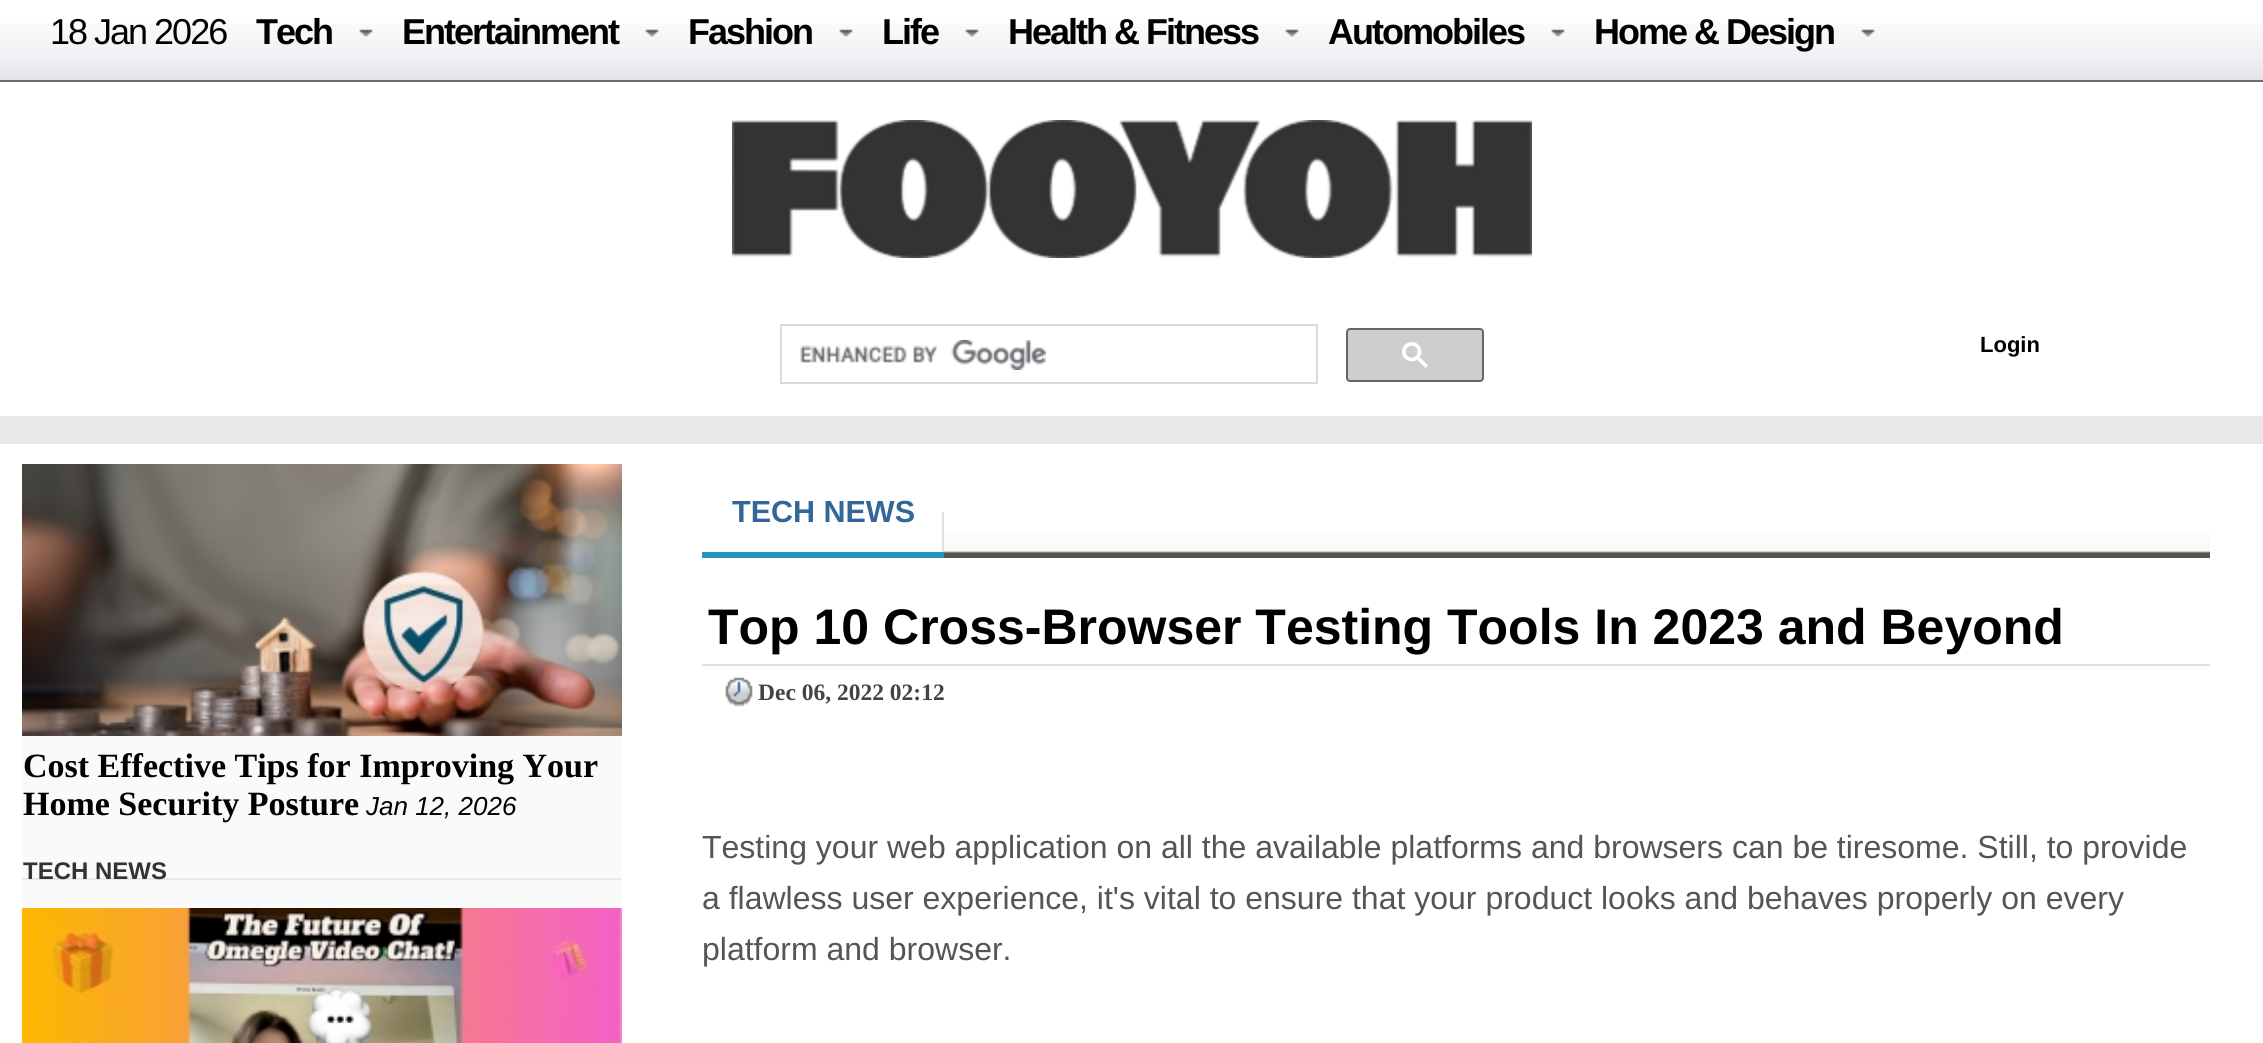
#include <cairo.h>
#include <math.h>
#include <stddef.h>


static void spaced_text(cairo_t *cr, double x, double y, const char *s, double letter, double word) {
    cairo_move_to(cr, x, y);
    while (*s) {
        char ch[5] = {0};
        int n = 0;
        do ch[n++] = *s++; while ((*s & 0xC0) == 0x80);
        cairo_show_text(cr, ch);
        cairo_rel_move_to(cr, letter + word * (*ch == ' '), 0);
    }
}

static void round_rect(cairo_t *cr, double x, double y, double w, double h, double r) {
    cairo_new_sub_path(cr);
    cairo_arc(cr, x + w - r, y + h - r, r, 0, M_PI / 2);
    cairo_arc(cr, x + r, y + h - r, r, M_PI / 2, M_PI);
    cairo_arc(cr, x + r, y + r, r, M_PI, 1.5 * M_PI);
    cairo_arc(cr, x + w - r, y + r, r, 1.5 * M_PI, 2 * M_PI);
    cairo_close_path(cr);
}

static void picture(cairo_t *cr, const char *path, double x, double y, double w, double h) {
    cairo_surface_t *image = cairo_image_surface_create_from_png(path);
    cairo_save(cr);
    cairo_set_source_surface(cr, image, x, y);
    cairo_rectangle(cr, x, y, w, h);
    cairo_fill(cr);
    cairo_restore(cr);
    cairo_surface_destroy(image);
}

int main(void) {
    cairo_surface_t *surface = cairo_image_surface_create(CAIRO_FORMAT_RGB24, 2263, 1043);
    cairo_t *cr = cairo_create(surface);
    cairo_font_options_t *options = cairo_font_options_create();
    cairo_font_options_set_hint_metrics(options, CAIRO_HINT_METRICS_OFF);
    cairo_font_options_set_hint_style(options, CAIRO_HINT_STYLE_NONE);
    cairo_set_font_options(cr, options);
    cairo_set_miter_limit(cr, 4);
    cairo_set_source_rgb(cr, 1, 1, 1);
    cairo_paint(cr);
    picture(cr, "img1.png", 0, 23, 2263, 57);
    cairo_set_source_rgb(cr, 0.427, 0.435, 0.427);
    cairo_rectangle(cr, 0, 80, 2263, 2);
    cairo_fill(cr);
    cairo_select_font_face(cr, "Liberation Sans", CAIRO_FONT_SLANT_NORMAL, CAIRO_FONT_WEIGHT_NORMAL);
    cairo_set_font_size(cr, 36);
    cairo_set_source_rgb(cr, 0, 0, 0);
    spaced_text(cr, 50, 44, "18 Jan 2026", -2, 0);
    picture(cr, "img2.png", 359, 29, 14, 8);
    cairo_select_font_face(cr, "Liberation Sans", CAIRO_FONT_SLANT_NORMAL, CAIRO_FONT_WEIGHT_BOLD);
    spaced_text(cr, 256, 44, "Tech", -2, 0);
    picture(cr, "img2.png", 645, 29, 14, 8);
    spaced_text(cr, 402, 44, "Entertainment", -2, 0);
    picture(cr, "img2.png", 839, 29, 14, 8);
    spaced_text(cr, 688, 44, "Fashion", -2, 0);
    picture(cr, "img2.png", 965, 29, 14, 8);
    spaced_text(cr, 882, 44, "Life", -2, 0);
    picture(cr, "img2.png", 1285, 29, 14, 8);
    spaced_text(cr, 1008, 44, "Health & Fitness", -2, 0);
    picture(cr, "img2.png", 1551, 29, 14, 8);
    spaced_text(cr, 1328, 44, "Automobiles", -2, 0);
    picture(cr, "img2.png", 1861, 29, 14, 8);
    spaced_text(cr, 1594, 44, "Home & Design", -2, 0);
    picture(cr, "img3.png", 732, 120, 800, 138);
    cairo_rectangle(cr, 781, 325, 536, 58);
    cairo_set_source_rgb(cr, 0.851, 0.851, 0.851);
    cairo_stroke(cr);
    picture(cr, "img4.png", 800, 340, 246, 30);
    cairo_set_source_rgb(cr, 0.808, 0.808, 0.808);
    round_rect(cr, 1347, 329, 136, 52, 3);
    cairo_fill_preserve(cr);
    cairo_set_source_rgb(cr, 0.4, 0.4, 0.4);
    cairo_stroke(cr);
    picture(cr, "img5.png", 1402, 342, 26, 26);
    cairo_set_font_size(cr, 22);
    cairo_set_source_rgb(cr, 0, 0, 0);
    cairo_move_to(cr, 1980, 352);
    cairo_show_text(cr, "Login");
    cairo_set_source_rgb(cr, 0.91, 0.91, 0.91);
    cairo_rectangle(cr, 0, 416, 2263, 28);
    cairo_fill(cr);
    cairo_set_source_rgb(cr, 0.98, 0.98, 0.98);
    cairo_rectangle(cr, 22, 736, 600, 172);
    cairo_fill(cr);
    picture(cr, "img6.png", 22, 464, 600, 272);
    cairo_select_font_face(cr, "Liberation Serif", CAIRO_FONT_SLANT_NORMAL, CAIRO_FONT_WEIGHT_BOLD);
    cairo_set_font_size(cr, 34);
    cairo_set_source_rgb(cr, 0, 0, 0);
    cairo_move_to(cr, 23, 777);
    cairo_show_text(cr, "Cost Effective Tips for Improving Your");
    cairo_move_to(cr, 23, 815);
    cairo_show_text(cr, "Home Security Posture");
    cairo_select_font_face(cr, "Liberation Sans", CAIRO_FONT_SLANT_ITALIC, CAIRO_FONT_WEIGHT_NORMAL);
    cairo_set_font_size(cr, 26);
    cairo_move_to(cr, 366, 815);
    cairo_show_text(cr, "Jan 12, 2026");
    cairo_set_source_rgb(cr, 0.91, 0.91, 0.91);
    cairo_rectangle(cr, 22, 878, 600, 2);
    cairo_fill(cr);
    cairo_select_font_face(cr, "Liberation Sans", CAIRO_FONT_SLANT_NORMAL, CAIRO_FONT_WEIGHT_BOLD);
    cairo_set_font_size(cr, 24);
    cairo_set_source_rgb(cr, 0.2, 0.2, 0.2);
    cairo_move_to(cr, 23, 879);
    cairo_show_text(cr, "TECH NEWS");
    picture(cr, "img7.png", 22, 908, 600, 135);
    picture(cr, "img8.png", 944, 531, 1266, 27);
    cairo_set_source_rgb(cr, 0.882, 0.882, 0.867);
    cairo_rectangle(cr, 942, 512, 2, 40);
    cairo_fill(cr);
    cairo_set_source_rgb(cr, 0.157, 0.584, 0.753);
    cairo_rectangle(cr, 702, 552, 242, 6);
    cairo_fill(cr);
    cairo_set_font_size(cr, 30.5);
    cairo_set_source_rgb(cr, 0.2, 0.4, 0.6);
    cairo_move_to(cr, 732, 522);
    cairo_show_text(cr, "TECH NEWS");
    cairo_set_source_rgb(cr, 0.878, 0.882, 0.859);
    cairo_rectangle(cr, 702, 664, 1508, 2);
    cairo_fill(cr);
    cairo_set_font_size(cr, 50);
    cairo_set_source_rgb(cr, 0, 0, 0);
    cairo_move_to(cr, 708, 644);
    cairo_show_text(cr, "Top 10 Cross-Browser Testing Tools In 2023 and Beyond");
    picture(cr, "img9.png", 725, 677, 28, 30);
    cairo_select_font_face(cr, "Liberation Serif", CAIRO_FONT_SLANT_NORMAL, CAIRO_FONT_WEIGHT_BOLD);
    cairo_set_font_size(cr, 23.5);
    cairo_set_source_rgb(cr, 0.267, 0.267, 0.267);
    cairo_move_to(cr, 758, 700);
    cairo_show_text(cr, "Dec 06, 2022 02:12");
    cairo_select_font_face(cr, "Liberation Sans", CAIRO_FONT_SLANT_NORMAL, CAIRO_FONT_WEIGHT_NORMAL);
    cairo_set_font_size(cr, 32);
    cairo_set_source_rgb(cr, 0.333, 0.333, 0.333);
    cairo_move_to(cr, 702, 858);
    cairo_show_text(cr, "Testing your web application on all the available platforms and browsers can be tiresome. Still, to provide");
    cairo_move_to(cr, 702, 909);
    cairo_show_text(cr, "a flawless user experience, it's vital to ensure that your product looks and behaves properly on every");
    cairo_move_to(cr, 702, 960);
    cairo_show_text(cr, "platform and browser.");
    cairo_surface_write_to_png(surface, "page.png");
    cairo_font_options_destroy(options);
    cairo_destroy(cr);
    cairo_surface_destroy(surface);
    return 0;
}
